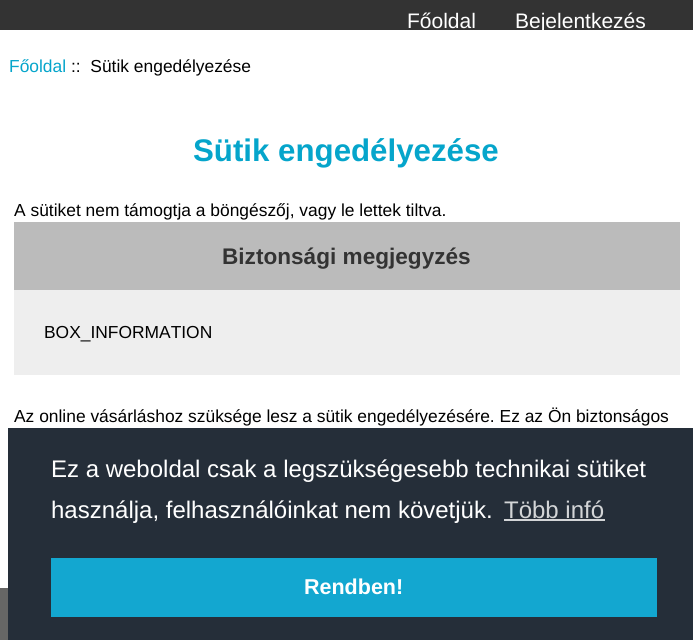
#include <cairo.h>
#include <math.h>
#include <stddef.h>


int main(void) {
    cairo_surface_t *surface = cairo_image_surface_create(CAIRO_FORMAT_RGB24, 693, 640);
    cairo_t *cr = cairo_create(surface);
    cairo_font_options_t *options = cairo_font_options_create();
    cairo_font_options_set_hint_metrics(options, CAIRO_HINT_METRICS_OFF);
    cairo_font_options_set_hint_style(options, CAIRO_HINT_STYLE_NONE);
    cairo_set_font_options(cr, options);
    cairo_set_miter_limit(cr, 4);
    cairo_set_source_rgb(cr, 1, 1, 1);
    cairo_paint(cr);
    cairo_set_source_rgb(cr, 0.2, 0.2, 0.2);
    cairo_rectangle(cr, 0, 0, 693, 30);
    cairo_fill(cr);
    cairo_select_font_face(cr, "Liberation Sans", CAIRO_FONT_SLANT_NORMAL, CAIRO_FONT_WEIGHT_NORMAL);
    cairo_set_font_size(cr, 21);
    cairo_set_source_rgb(cr, 1, 1, 1);
    cairo_move_to(cr, 407, 28);
    cairo_show_text(cr, "Főoldal");
    cairo_move_to(cr, 515, 28);
    cairo_show_text(cr, "Bejelentkezés");
    cairo_set_font_size(cr, 17.4);
    cairo_set_source_rgb(cr, 0.02, 0.647, 0.796);
    cairo_move_to(cr, 9, 72);
    cairo_show_text(cr, "Főoldal");
    cairo_set_source_rgb(cr, 0, 0, 0);
    cairo_move_to(cr, 71, 72);
    cairo_show_text(cr, "::  Sütik engedélyezése");
    cairo_select_font_face(cr, "Liberation Sans", CAIRO_FONT_SLANT_NORMAL, CAIRO_FONT_WEIGHT_BOLD);
    cairo_set_font_size(cr, 31.25);
    cairo_set_source_rgb(cr, 0.02, 0.647, 0.796);
    cairo_move_to(cr, 193, 161);
    cairo_show_text(cr, "Sütik engedélyezése");
    cairo_select_font_face(cr, "Liberation Sans", CAIRO_FONT_SLANT_NORMAL, CAIRO_FONT_WEIGHT_NORMAL);
    cairo_set_font_size(cr, 17.4);
    cairo_set_source_rgb(cr, 0, 0, 0);
    cairo_move_to(cr, 14, 216);
    cairo_show_text(cr, "A sütiket nem támogtja a böngészőj, vagy le lettek tiltva.");
    cairo_set_source_rgb(cr, 0.933, 0.933, 0.933);
    cairo_rectangle(cr, 14, 290, 666, 85);
    cairo_fill(cr);
    cairo_set_source_rgb(cr, 0.733, 0.733, 0.733);
    cairo_rectangle(cr, 14, 222, 666, 68);
    cairo_fill(cr);
    cairo_select_font_face(cr, "Liberation Sans", CAIRO_FONT_SLANT_NORMAL, CAIRO_FONT_WEIGHT_BOLD);
    cairo_set_font_size(cr, 22.6);
    cairo_set_source_rgb(cr, 0.2, 0.2, 0.2);
    cairo_move_to(cr, 222, 264);
    cairo_show_text(cr, "Biztonsági megjegyzés");
    cairo_select_font_face(cr, "Liberation Sans", CAIRO_FONT_SLANT_NORMAL, CAIRO_FONT_WEIGHT_NORMAL);
    cairo_set_font_size(cr, 17.4);
    cairo_set_source_rgb(cr, 0, 0, 0);
    cairo_move_to(cr, 44, 338);
    cairo_show_text(cr, "BOX_INFORMATION");
    cairo_move_to(cr, 14, 422);
    cairo_show_text(cr, "Az online vásárláshoz szüksége lesz a sütik engedélyezésére. Ez az Ön biztonságos");
    cairo_set_source_rgb(cr, 0.4, 0.4, 0.396);
    cairo_rectangle(cr, 0, 588, 8, 52);
    cairo_fill(cr);
    cairo_set_source_rgb(cr, 0.145, 0.18, 0.224);
    cairo_rectangle(cr, 8, 428, 685, 212);
    cairo_fill(cr);
    cairo_set_font_size(cr, 24);
    cairo_set_source_rgb(cr, 1, 1, 1);
    cairo_move_to(cr, 51, 477);
    cairo_show_text(cr, "Ez a weboldal csak a legszükségesebb technikai sütiket");
    cairo_move_to(cr, 51, 518);
    cairo_show_text(cr, "használja, felhasználóinkat nem követjük.");
    cairo_set_source_rgb(cr, 0.827, 0.835, 0.843);
    cairo_move_to(cr, 504, 518);
    cairo_show_text(cr, "Több infó");
    cairo_rectangle(cr, 504, 519, 101, 2);
    cairo_fill(cr);
    cairo_set_source_rgb(cr, 0.078, 0.655, 0.816);
    cairo_rectangle(cr, 51, 558, 606, 59);
    cairo_fill(cr);
    cairo_select_font_face(cr, "Liberation Sans", CAIRO_FONT_SLANT_NORMAL, CAIRO_FONT_WEIGHT_BOLD);
    cairo_set_font_size(cr, 21.5);
    cairo_set_source_rgb(cr, 1, 1, 1);
    cairo_move_to(cr, 304, 594);
    cairo_show_text(cr, "Rendben!");
    cairo_surface_write_to_png(surface, "page.png");
    cairo_font_options_destroy(options);
    cairo_destroy(cr);
    cairo_surface_destroy(surface);
    return 0;
}
